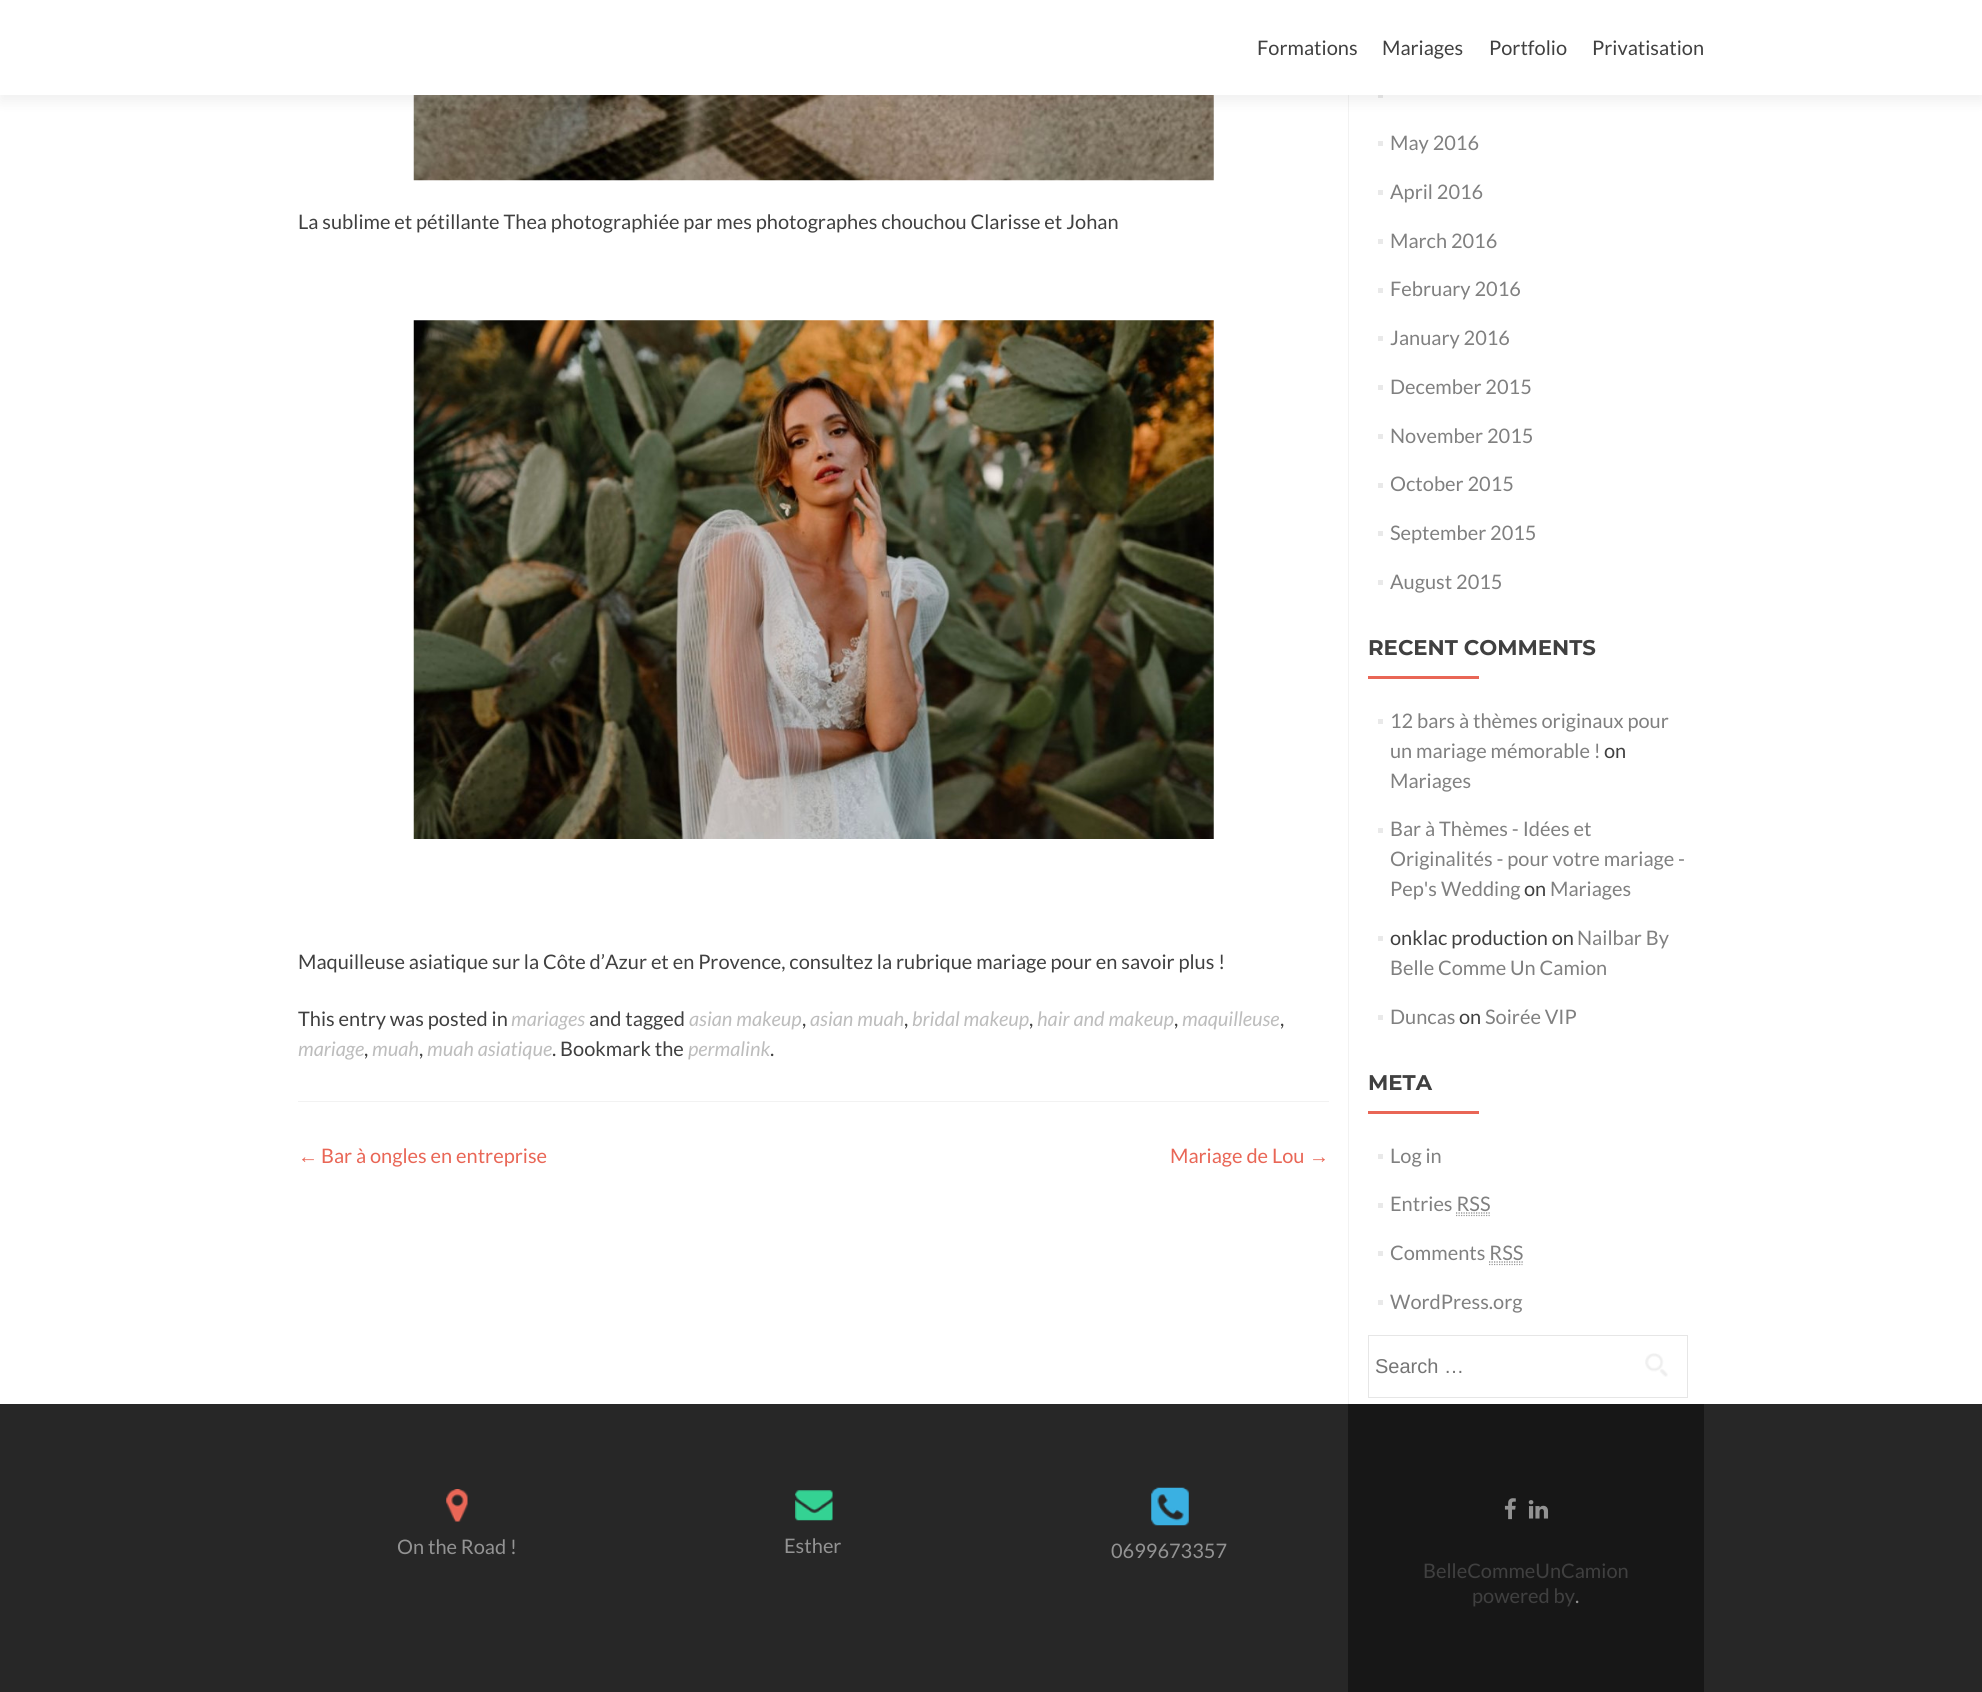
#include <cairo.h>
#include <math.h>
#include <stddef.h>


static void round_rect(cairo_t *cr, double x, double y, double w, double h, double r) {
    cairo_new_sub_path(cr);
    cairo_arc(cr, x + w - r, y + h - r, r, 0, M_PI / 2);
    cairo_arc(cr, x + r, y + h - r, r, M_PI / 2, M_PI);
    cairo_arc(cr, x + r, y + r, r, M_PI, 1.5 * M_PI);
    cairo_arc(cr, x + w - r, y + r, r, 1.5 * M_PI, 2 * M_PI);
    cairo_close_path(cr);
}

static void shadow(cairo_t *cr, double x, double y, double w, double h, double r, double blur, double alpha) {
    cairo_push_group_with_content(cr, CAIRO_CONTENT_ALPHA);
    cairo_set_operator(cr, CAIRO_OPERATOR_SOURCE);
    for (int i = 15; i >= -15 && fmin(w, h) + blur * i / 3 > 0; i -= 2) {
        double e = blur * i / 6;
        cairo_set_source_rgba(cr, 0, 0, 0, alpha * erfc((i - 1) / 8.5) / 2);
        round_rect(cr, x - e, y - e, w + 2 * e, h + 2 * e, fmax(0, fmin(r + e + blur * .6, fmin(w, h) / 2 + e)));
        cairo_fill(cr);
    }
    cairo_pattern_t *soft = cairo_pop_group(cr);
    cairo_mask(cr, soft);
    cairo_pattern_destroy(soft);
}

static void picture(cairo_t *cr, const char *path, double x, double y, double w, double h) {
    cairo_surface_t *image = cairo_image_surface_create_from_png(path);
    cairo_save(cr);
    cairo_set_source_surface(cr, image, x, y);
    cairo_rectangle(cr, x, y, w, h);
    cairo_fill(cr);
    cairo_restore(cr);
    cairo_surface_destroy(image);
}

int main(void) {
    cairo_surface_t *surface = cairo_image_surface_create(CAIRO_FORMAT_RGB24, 1982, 1692);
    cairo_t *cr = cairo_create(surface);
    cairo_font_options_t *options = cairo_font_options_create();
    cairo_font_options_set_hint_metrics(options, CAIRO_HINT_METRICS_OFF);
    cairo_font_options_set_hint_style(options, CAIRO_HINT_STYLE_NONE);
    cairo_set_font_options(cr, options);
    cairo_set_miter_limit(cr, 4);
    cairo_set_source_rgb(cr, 1, 1, 1);
    cairo_paint(cr);
    picture(cr, "img1.png", 413, 95, 801, 86);
    cairo_set_source_rgb(cr, 0.949, 0.949, 0.949);
    cairo_rectangle(cr, 1348, 95, 1, 1309);
    cairo_fill(cr);
    cairo_set_source_rgb(cr, 0.914, 0.914, 0.914);
    cairo_rectangle(cr, 1378, 95, 5, 3);
    cairo_fill(cr);
    cairo_set_source_rgb(cr, 0.196, 0.196, 0.196);
    shadow(cr, 0, 6, 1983, 95, 0, 7, 0.08);
    cairo_set_source_rgb(cr, 1, 1, 1);
    cairo_rectangle(cr, 0, 0, 1982, 95);
    cairo_fill(cr);
    cairo_select_font_face(cr, "Lato", CAIRO_FONT_SLANT_NORMAL, CAIRO_FONT_WEIGHT_NORMAL);
    cairo_set_font_size(cr, 20);
    cairo_set_source_rgb(cr, 0.251, 0.251, 0.251);
    cairo_move_to(cr, 1257, 55);
    cairo_show_text(cr, "Formations");
    cairo_move_to(cr, 1382, 55);
    cairo_show_text(cr, "Mariages");
    cairo_move_to(cr, 1489, 55);
    cairo_show_text(cr, "Portfolio");
    cairo_move_to(cr, 1592, 55);
    cairo_show_text(cr, "Privatisation");
    cairo_set_source_rgb(cr, 0.949, 0.949, 0.949);
    cairo_rectangle(cr, 298, 1101, 1031, 1);
    cairo_fill(cr);
    cairo_set_source_rgb(cr, 0.251, 0.251, 0.251);
    cairo_move_to(cr, 298, 229);
    cairo_show_text(cr, "La sublime et pétillante Thea photographiée par mes photographes chouchou Clarisse et Johan");
    picture(cr, "img2.png", 413, 320, 801, 519);
    cairo_move_to(cr, 298, 969);
    cairo_show_text(cr, "Maquilleuse asiatique sur la Côte d’Azur et en Provence, consultez la rubrique mariage pour en savoir plus !");
    cairo_move_to(cr, 298, 1026);
    cairo_show_text(cr, "This entry was posted in");
    cairo_select_font_face(cr, "Lato", CAIRO_FONT_SLANT_ITALIC, CAIRO_FONT_WEIGHT_NORMAL);
    cairo_set_source_rgb(cr, 0.741, 0.741, 0.741);
    cairo_move_to(cr, 511, 1026);
    cairo_show_text(cr, "mariages");
    cairo_select_font_face(cr, "Lato", CAIRO_FONT_SLANT_NORMAL, CAIRO_FONT_WEIGHT_NORMAL);
    cairo_set_source_rgb(cr, 0.251, 0.251, 0.251);
    cairo_move_to(cr, 589, 1026);
    cairo_show_text(cr, "and tagged");
    cairo_select_font_face(cr, "Lato", CAIRO_FONT_SLANT_ITALIC, CAIRO_FONT_WEIGHT_NORMAL);
    cairo_set_source_rgb(cr, 0.741, 0.741, 0.741);
    cairo_move_to(cr, 689, 1026);
    cairo_show_text(cr, "asian makeup");
    cairo_select_font_face(cr, "Lato", CAIRO_FONT_SLANT_NORMAL, CAIRO_FONT_WEIGHT_NORMAL);
    cairo_set_source_rgb(cr, 0.251, 0.251, 0.251);
    cairo_move_to(cr, 802, 1026);
    cairo_show_text(cr, ",");
    cairo_select_font_face(cr, "Lato", CAIRO_FONT_SLANT_ITALIC, CAIRO_FONT_WEIGHT_NORMAL);
    cairo_set_source_rgb(cr, 0.741, 0.741, 0.741);
    cairo_move_to(cr, 810, 1026);
    cairo_show_text(cr, "asian muah");
    cairo_select_font_face(cr, "Lato", CAIRO_FONT_SLANT_NORMAL, CAIRO_FONT_WEIGHT_NORMAL);
    cairo_set_source_rgb(cr, 0.251, 0.251, 0.251);
    cairo_move_to(cr, 904, 1026);
    cairo_show_text(cr, ",");
    cairo_select_font_face(cr, "Lato", CAIRO_FONT_SLANT_ITALIC, CAIRO_FONT_WEIGHT_NORMAL);
    cairo_set_source_rgb(cr, 0.741, 0.741, 0.741);
    cairo_move_to(cr, 912, 1026);
    cairo_show_text(cr, "bridal makeup");
    cairo_select_font_face(cr, "Lato", CAIRO_FONT_SLANT_NORMAL, CAIRO_FONT_WEIGHT_NORMAL);
    cairo_set_source_rgb(cr, 0.251, 0.251, 0.251);
    cairo_move_to(cr, 1029, 1026);
    cairo_show_text(cr, ",");
    cairo_select_font_face(cr, "Lato", CAIRO_FONT_SLANT_ITALIC, CAIRO_FONT_WEIGHT_NORMAL);
    cairo_set_source_rgb(cr, 0.741, 0.741, 0.741);
    cairo_move_to(cr, 1037, 1026);
    cairo_show_text(cr, "hair and makeup");
    cairo_select_font_face(cr, "Lato", CAIRO_FONT_SLANT_NORMAL, CAIRO_FONT_WEIGHT_NORMAL);
    cairo_set_source_rgb(cr, 0.251, 0.251, 0.251);
    cairo_move_to(cr, 1174, 1026);
    cairo_show_text(cr, ",");
    cairo_select_font_face(cr, "Lato", CAIRO_FONT_SLANT_ITALIC, CAIRO_FONT_WEIGHT_NORMAL);
    cairo_set_source_rgb(cr, 0.741, 0.741, 0.741);
    cairo_move_to(cr, 1182, 1026);
    cairo_show_text(cr, "maquilleuse");
    cairo_select_font_face(cr, "Lato", CAIRO_FONT_SLANT_NORMAL, CAIRO_FONT_WEIGHT_NORMAL);
    cairo_set_source_rgb(cr, 0.251, 0.251, 0.251);
    cairo_move_to(cr, 1280, 1026);
    cairo_show_text(cr, ",");
    cairo_select_font_face(cr, "Lato", CAIRO_FONT_SLANT_ITALIC, CAIRO_FONT_WEIGHT_NORMAL);
    cairo_set_source_rgb(cr, 0.741, 0.741, 0.741);
    cairo_move_to(cr, 298, 1056);
    cairo_show_text(cr, "mariage");
    cairo_select_font_face(cr, "Lato", CAIRO_FONT_SLANT_NORMAL, CAIRO_FONT_WEIGHT_NORMAL);
    cairo_set_source_rgb(cr, 0.251, 0.251, 0.251);
    cairo_move_to(cr, 364, 1056);
    cairo_show_text(cr, ",");
    cairo_select_font_face(cr, "Lato", CAIRO_FONT_SLANT_ITALIC, CAIRO_FONT_WEIGHT_NORMAL);
    cairo_set_source_rgb(cr, 0.741, 0.741, 0.741);
    cairo_move_to(cr, 372, 1056);
    cairo_show_text(cr, "muah");
    cairo_select_font_face(cr, "Lato", CAIRO_FONT_SLANT_NORMAL, CAIRO_FONT_WEIGHT_NORMAL);
    cairo_set_source_rgb(cr, 0.251, 0.251, 0.251);
    cairo_move_to(cr, 419, 1056);
    cairo_show_text(cr, ",");
    cairo_select_font_face(cr, "Lato", CAIRO_FONT_SLANT_ITALIC, CAIRO_FONT_WEIGHT_NORMAL);
    cairo_set_source_rgb(cr, 0.741, 0.741, 0.741);
    cairo_move_to(cr, 427, 1056);
    cairo_show_text(cr, "muah asiatique");
    cairo_select_font_face(cr, "Lato", CAIRO_FONT_SLANT_NORMAL, CAIRO_FONT_WEIGHT_NORMAL);
    cairo_set_source_rgb(cr, 0.251, 0.251, 0.251);
    cairo_move_to(cr, 552, 1056);
    cairo_show_text(cr, ". Bookmark the");
    cairo_select_font_face(cr, "Lato", CAIRO_FONT_SLANT_ITALIC, CAIRO_FONT_WEIGHT_NORMAL);
    cairo_set_source_rgb(cr, 0.741, 0.741, 0.741);
    cairo_move_to(cr, 688, 1056);
    cairo_show_text(cr, "permalink");
    cairo_select_font_face(cr, "Lato", CAIRO_FONT_SLANT_NORMAL, CAIRO_FONT_WEIGHT_NORMAL);
    cairo_set_source_rgb(cr, 0.251, 0.251, 0.251);
    cairo_move_to(cr, 770, 1056);
    cairo_show_text(cr, ".");
    cairo_select_font_face(cr, "Liberation Sans", CAIRO_FONT_SLANT_NORMAL, CAIRO_FONT_WEIGHT_NORMAL);
    cairo_set_source_rgb(cr, 0.914, 0.4, 0.337);
    cairo_move_to(cr, 298, 1163);
    cairo_show_text(cr, "←");
    cairo_select_font_face(cr, "Lato", CAIRO_FONT_SLANT_NORMAL, CAIRO_FONT_WEIGHT_NORMAL);
    cairo_move_to(cr, 321, 1163);
    cairo_show_text(cr, "Bar à ongles en entreprise");
    cairo_move_to(cr, 1170, 1163);
    cairo_show_text(cr, "Mariage de Lou");
    cairo_select_font_face(cr, "Liberation Sans", CAIRO_FONT_SLANT_NORMAL, CAIRO_FONT_WEIGHT_NORMAL);
    cairo_move_to(cr, 1309, 1163);
    cairo_show_text(cr, "→");
    cairo_set_source_rgb(cr, 0.914, 0.914, 0.914);
    cairo_rectangle(cr, 1378, 141, 5, 5);
    cairo_fill(cr);
    cairo_select_font_face(cr, "Lato", CAIRO_FONT_SLANT_NORMAL, CAIRO_FONT_WEIGHT_NORMAL);
    cairo_set_source_rgb(cr, 0.502, 0.502, 0.502);
    cairo_move_to(cr, 1390, 150);
    cairo_show_text(cr, "May 2016");
    cairo_set_source_rgb(cr, 0.914, 0.914, 0.914);
    cairo_rectangle(cr, 1378, 190, 5, 5);
    cairo_fill(cr);
    cairo_set_source_rgb(cr, 0.502, 0.502, 0.502);
    cairo_move_to(cr, 1390, 199);
    cairo_show_text(cr, "April 2016");
    cairo_set_source_rgb(cr, 0.914, 0.914, 0.914);
    cairo_rectangle(cr, 1378, 239, 5, 5);
    cairo_fill(cr);
    cairo_set_source_rgb(cr, 0.502, 0.502, 0.502);
    cairo_move_to(cr, 1390, 248);
    cairo_show_text(cr, "March 2016");
    cairo_set_source_rgb(cr, 0.914, 0.914, 0.914);
    cairo_rectangle(cr, 1378, 288, 5, 5);
    cairo_fill(cr);
    cairo_set_source_rgb(cr, 0.502, 0.502, 0.502);
    cairo_move_to(cr, 1390, 296);
    cairo_show_text(cr, "February 2016");
    cairo_set_source_rgb(cr, 0.914, 0.914, 0.914);
    cairo_rectangle(cr, 1378, 336, 5, 5);
    cairo_fill(cr);
    cairo_set_source_rgb(cr, 0.502, 0.502, 0.502);
    cairo_move_to(cr, 1390, 345);
    cairo_show_text(cr, "January 2016");
    cairo_set_source_rgb(cr, 0.914, 0.914, 0.914);
    cairo_rectangle(cr, 1378, 385, 5, 5);
    cairo_fill(cr);
    cairo_set_source_rgb(cr, 0.502, 0.502, 0.502);
    cairo_move_to(cr, 1390, 394);
    cairo_show_text(cr, "December 2015");
    cairo_set_source_rgb(cr, 0.914, 0.914, 0.914);
    cairo_rectangle(cr, 1378, 434, 5, 5);
    cairo_fill(cr);
    cairo_set_source_rgb(cr, 0.502, 0.502, 0.502);
    cairo_move_to(cr, 1390, 443);
    cairo_show_text(cr, "November 2015");
    cairo_set_source_rgb(cr, 0.914, 0.914, 0.914);
    cairo_rectangle(cr, 1378, 483, 5, 5);
    cairo_fill(cr);
    cairo_set_source_rgb(cr, 0.502, 0.502, 0.502);
    cairo_move_to(cr, 1390, 491);
    cairo_show_text(cr, "October 2015");
    cairo_set_source_rgb(cr, 0.914, 0.914, 0.914);
    cairo_rectangle(cr, 1378, 531, 5, 5);
    cairo_fill(cr);
    cairo_set_source_rgb(cr, 0.502, 0.502, 0.502);
    cairo_move_to(cr, 1390, 540);
    cairo_show_text(cr, "September 2015");
    cairo_set_source_rgb(cr, 0.914, 0.914, 0.914);
    cairo_rectangle(cr, 1378, 580, 5, 5);
    cairo_fill(cr);
    cairo_set_source_rgb(cr, 0.502, 0.502, 0.502);
    cairo_move_to(cr, 1390, 589);
    cairo_show_text(cr, "August 2015");
    cairo_select_font_face(cr, "Montserrat Thin", CAIRO_FONT_SLANT_NORMAL, CAIRO_FONT_WEIGHT_NORMAL);
    cairo_set_font_size(cr, 21.25);
    cairo_set_source_rgb(cr, 0.251, 0.251, 0.251);
    cairo_move_to(cr, 1368, 655);
    cairo_show_text(cr, "RECENT COMMENTS");
    cairo_set_source_rgb(cr, 0.914, 0.4, 0.337);
    cairo_rectangle(cr, 1368, 676, 111, 3);
    cairo_fill(cr);
    cairo_set_source_rgb(cr, 0.914, 0.914, 0.914);
    cairo_rectangle(cr, 1378, 719, 5, 5);
    cairo_fill(cr);
    cairo_select_font_face(cr, "Lato", CAIRO_FONT_SLANT_NORMAL, CAIRO_FONT_WEIGHT_NORMAL);
    cairo_set_font_size(cr, 20);
    cairo_set_source_rgb(cr, 0.502, 0.502, 0.502);
    cairo_move_to(cr, 1390, 728);
    cairo_show_text(cr, "12 bars à thèmes originaux pour");
    cairo_move_to(cr, 1390, 758);
    cairo_show_text(cr, "un mariage mémorable !");
    cairo_set_source_rgb(cr, 0.251, 0.251, 0.251);
    cairo_move_to(cr, 1604, 758);
    cairo_show_text(cr, "on");
    cairo_set_source_rgb(cr, 0.502, 0.502, 0.502);
    cairo_move_to(cr, 1390, 788);
    cairo_show_text(cr, "Mariages");
    cairo_set_source_rgb(cr, 0.914, 0.914, 0.914);
    cairo_rectangle(cr, 1378, 828, 5, 5);
    cairo_fill(cr);
    cairo_set_source_rgb(cr, 0.502, 0.502, 0.502);
    cairo_move_to(cr, 1390, 836);
    cairo_show_text(cr, "Bar à Thèmes - Idées et");
    cairo_move_to(cr, 1390, 866);
    cairo_show_text(cr, "Originalités - pour votre mariage -");
    cairo_move_to(cr, 1390, 896);
    cairo_show_text(cr, "Pep's Wedding");
    cairo_set_source_rgb(cr, 0.251, 0.251, 0.251);
    cairo_move_to(cr, 1524, 896);
    cairo_show_text(cr, "on");
    cairo_set_source_rgb(cr, 0.502, 0.502, 0.502);
    cairo_move_to(cr, 1550, 896);
    cairo_show_text(cr, "Mariages");
    cairo_set_source_rgb(cr, 0.914, 0.914, 0.914);
    cairo_rectangle(cr, 1378, 936, 5, 5);
    cairo_fill(cr);
    cairo_set_source_rgb(cr, 0.251, 0.251, 0.251);
    cairo_move_to(cr, 1390, 945);
    cairo_show_text(cr, "onklac production on");
    cairo_set_source_rgb(cr, 0.502, 0.502, 0.502);
    cairo_move_to(cr, 1577, 945);
    cairo_show_text(cr, "Nailbar By");
    cairo_move_to(cr, 1390, 975);
    cairo_show_text(cr, "Belle Comme Un Camion");
    cairo_set_source_rgb(cr, 0.914, 0.914, 0.914);
    cairo_rectangle(cr, 1378, 1015, 5, 5);
    cairo_fill(cr);
    cairo_set_source_rgb(cr, 0.502, 0.502, 0.502);
    cairo_move_to(cr, 1390, 1024);
    cairo_show_text(cr, "Duncas");
    cairo_set_source_rgb(cr, 0.251, 0.251, 0.251);
    cairo_move_to(cr, 1459, 1024);
    cairo_show_text(cr, "on");
    cairo_set_source_rgb(cr, 0.502, 0.502, 0.502);
    cairo_move_to(cr, 1485, 1024);
    cairo_show_text(cr, "Soirée VIP");
    cairo_select_font_face(cr, "Montserrat Thin", CAIRO_FONT_SLANT_NORMAL, CAIRO_FONT_WEIGHT_NORMAL);
    cairo_set_font_size(cr, 21.25);
    cairo_set_source_rgb(cr, 0.251, 0.251, 0.251);
    cairo_move_to(cr, 1368, 1090);
    cairo_show_text(cr, "META");
    cairo_set_source_rgb(cr, 0.914, 0.4, 0.337);
    cairo_rectangle(cr, 1368, 1111, 111, 3);
    cairo_fill(cr);
    cairo_set_source_rgb(cr, 0.914, 0.914, 0.914);
    cairo_rectangle(cr, 1378, 1154, 5, 5);
    cairo_fill(cr);
    cairo_select_font_face(cr, "Lato", CAIRO_FONT_SLANT_NORMAL, CAIRO_FONT_WEIGHT_NORMAL);
    cairo_set_font_size(cr, 20);
    cairo_set_source_rgb(cr, 0.502, 0.502, 0.502);
    cairo_move_to(cr, 1390, 1163);
    cairo_show_text(cr, "Log in");
    cairo_set_source_rgb(cr, 0.914, 0.914, 0.914);
    cairo_rectangle(cr, 1378, 1203, 5, 5);
    cairo_fill(cr);
    cairo_set_source_rgb(cr, 0.502, 0.502, 0.502);
    cairo_move_to(cr, 1390, 1211);
    cairo_show_text(cr, "Entries RSS");
    cairo_new_path(cr);
    cairo_move_to(cr, 1456, 1215.5);
    cairo_line_to(cr, 1490, 1215.5);
    cairo_set_source_rgb(cr, 0.6, 0.6, 0.6);
    cairo_set_line_width(cr, 1.2);
    cairo_set_dash(cr, (double[]){1.25, 1.25}, 2, 0);
    cairo_stroke(cr);
    cairo_new_path(cr);
    cairo_move_to(cr, 1456, 1213);
    cairo_line_to(cr, 1490, 1213);
    cairo_set_source_rgb(cr, 0.502, 0.502, 0.502);
    cairo_stroke(cr);
    cairo_set_source_rgb(cr, 0.914, 0.914, 0.914);
    cairo_rectangle(cr, 1378, 1251, 5, 5);
    cairo_fill(cr);
    cairo_set_source_rgb(cr, 0.502, 0.502, 0.502);
    cairo_move_to(cr, 1390, 1260);
    cairo_show_text(cr, "Comments RSS");
    cairo_new_path(cr);
    cairo_move_to(cr, 1489, 1264.5);
    cairo_line_to(cr, 1522.5, 1264.5);
    cairo_set_source_rgb(cr, 0.6, 0.6, 0.6);
    cairo_stroke(cr);
    cairo_new_path(cr);
    cairo_move_to(cr, 1489, 1262);
    cairo_line_to(cr, 1523, 1262);
    cairo_set_source_rgb(cr, 0.502, 0.502, 0.502);
    cairo_stroke(cr);
    cairo_set_source_rgb(cr, 0.914, 0.914, 0.914);
    cairo_rectangle(cr, 1378, 1300, 5, 5);
    cairo_fill(cr);
    cairo_set_source_rgb(cr, 0.502, 0.502, 0.502);
    cairo_move_to(cr, 1390, 1309);
    cairo_show_text(cr, "WordPress.org");
    cairo_rectangle(cr, 1368.5, 1335.5, 319, 62);
    cairo_set_source_rgb(cr, 0.902, 0.902, 0.902);
    cairo_set_line_width(cr, 1);
    cairo_set_dash(cr, NULL, 0, 0);
    cairo_stroke(cr);
    cairo_select_font_face(cr, "Liberation Sans", CAIRO_FONT_SLANT_NORMAL, CAIRO_FONT_WEIGHT_NORMAL);
    cairo_set_source_rgb(cr, 0.459, 0.459, 0.459);
    cairo_move_to(cr, 1375, 1373);
    cairo_show_text(cr, "Search …");
    picture(cr, "img3.png", 1645, 1353, 23, 24);
    cairo_set_source_rgb(cr, 0.153, 0.153, 0.153);
    cairo_rectangle(cr, 0, 1404, 1982, 288);
    cairo_fill(cr);
    picture(cr, "img4.png", 446, 1489, 22, 33);
    cairo_select_font_face(cr, "Lato", CAIRO_FONT_SLANT_NORMAL, CAIRO_FONT_WEIGHT_NORMAL);
    cairo_set_source_rgb(cr, 0.576, 0.576, 0.576);
    cairo_move_to(cr, 397, 1554);
    cairo_show_text(cr, "On the Road !");
    picture(cr, "img5.png", 795, 1490, 38, 31);
    cairo_move_to(cr, 784, 1553);
    cairo_show_text(cr, "Esther");
    picture(cr, "img6.png", 1151, 1487, 38, 39);
    cairo_move_to(cr, 1111, 1558);
    cairo_show_text(cr, "0699673357");
    cairo_set_source_rgb(cr, 0.09, 0.09, 0.09);
    cairo_rectangle(cr, 1348, 1404, 356, 288);
    cairo_fill(cr);
    picture(cr, "img7.png", 1504, 1498, 12, 22);
    picture(cr, "img8.png", 1528, 1500, 21, 19);
    cairo_set_source_rgb(cr, 0.251, 0.251, 0.251);
    cairo_move_to(cr, 1423, 1578);
    cairo_show_text(cr, "BelleCommeUnCamion");
    cairo_move_to(cr, 1472, 1603);
    cairo_show_text(cr, "powered by");
    cairo_set_source_rgb(cr, 0.576, 0.576, 0.576);
    cairo_move_to(cr, 1575, 1603);
    cairo_show_text(cr, ".");
    cairo_surface_write_to_png(surface, "page.png");
    cairo_font_options_destroy(options);
    cairo_destroy(cr);
    cairo_surface_destroy(surface);
    return 0;
}
